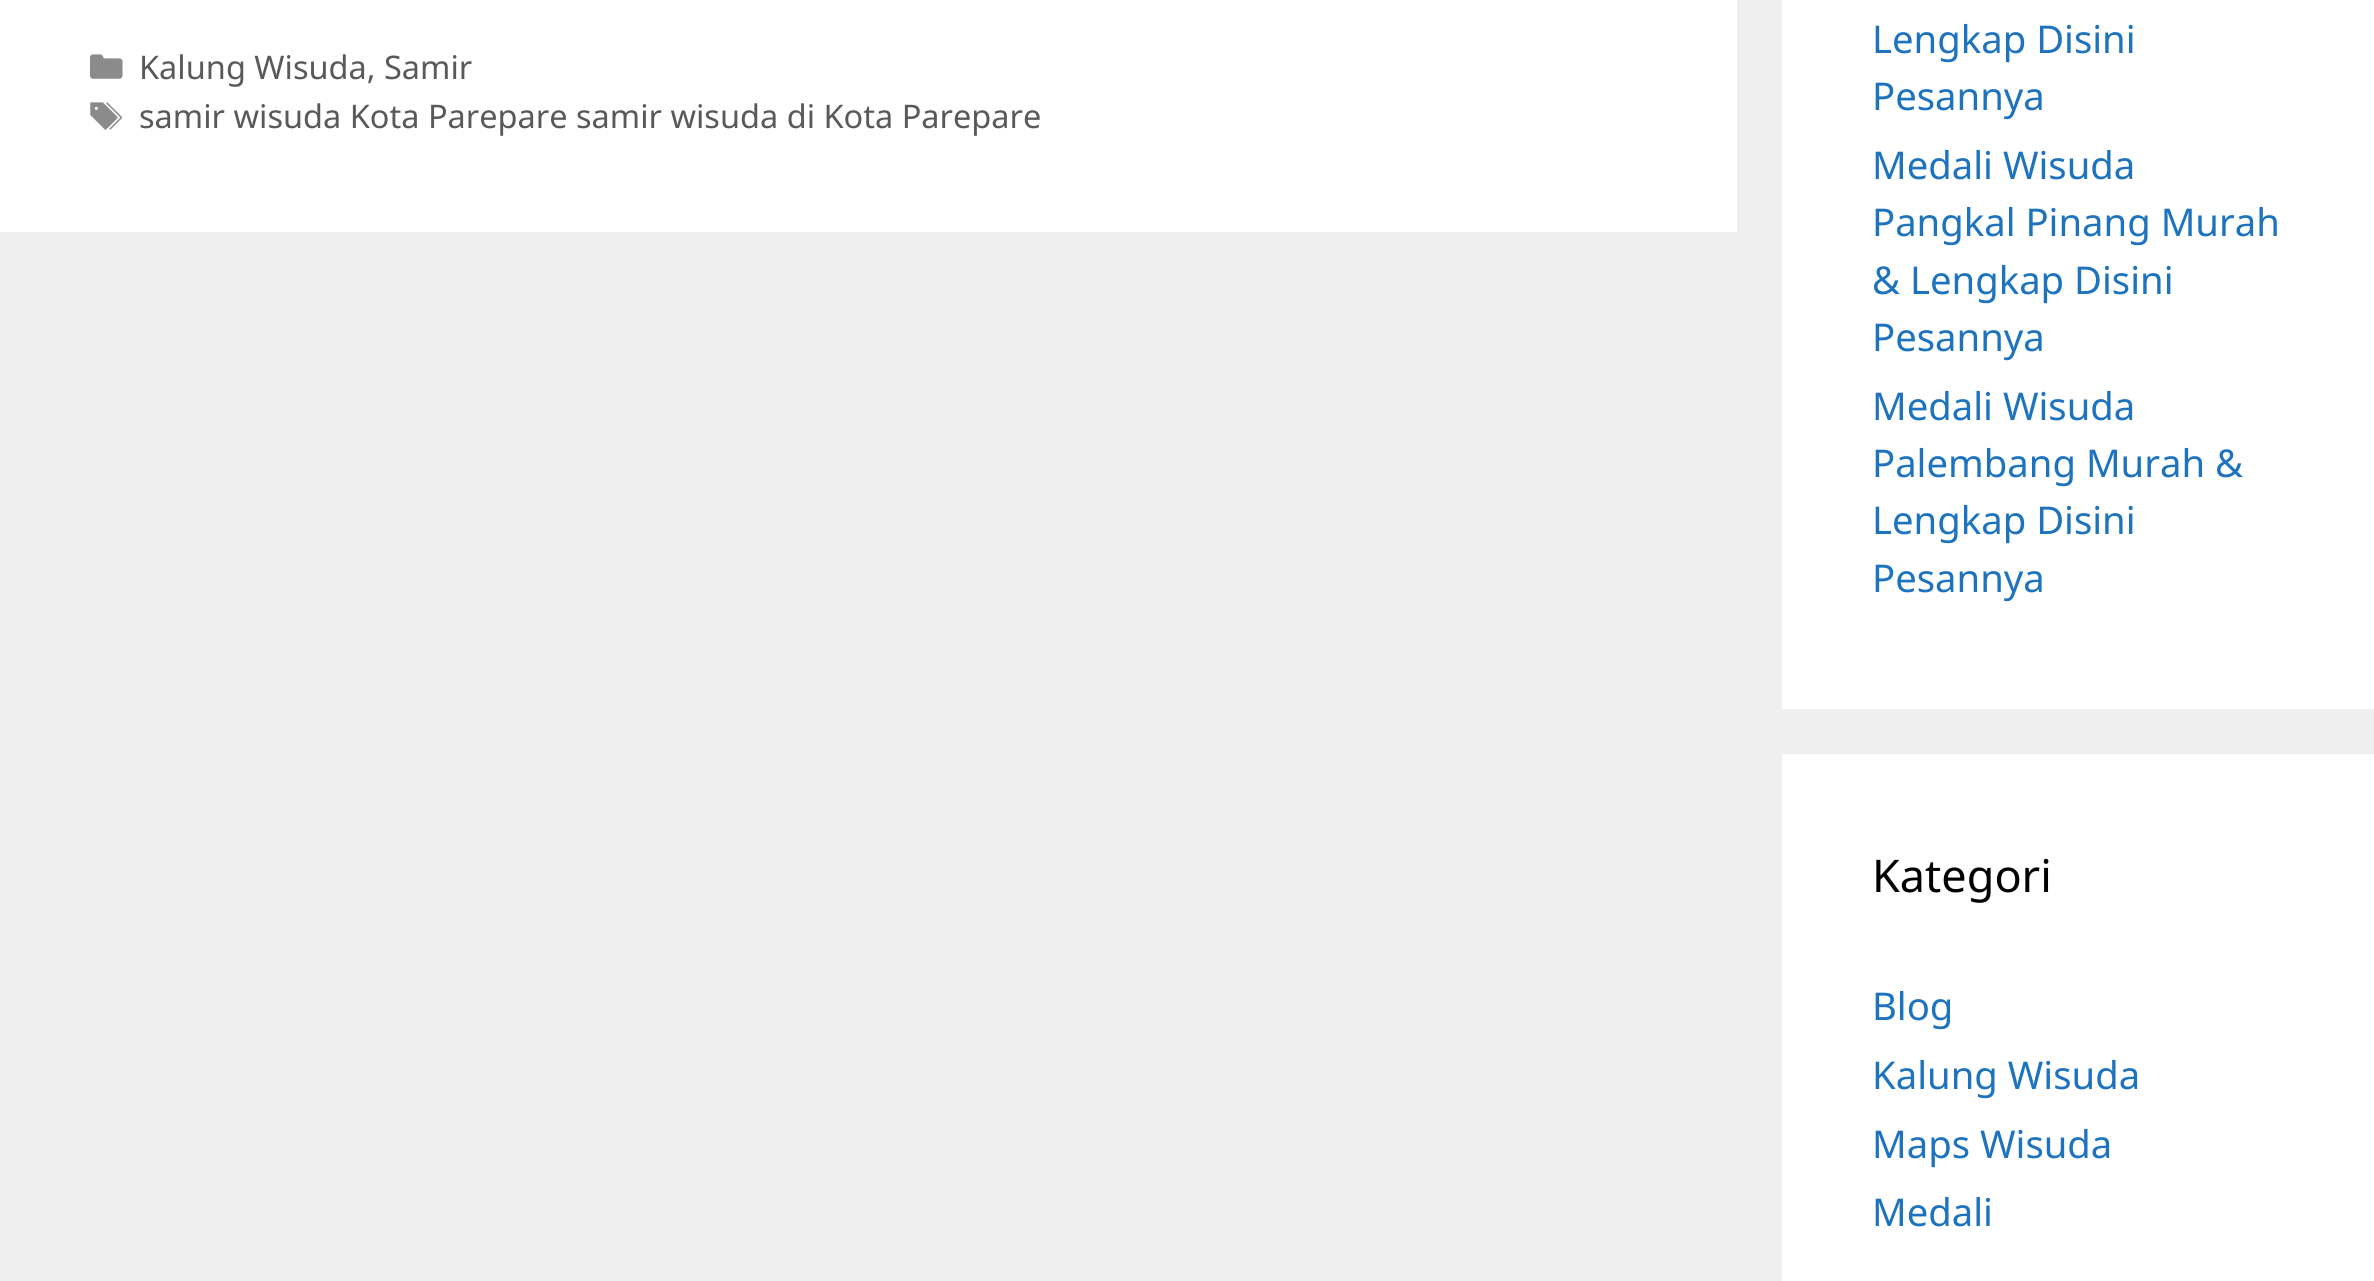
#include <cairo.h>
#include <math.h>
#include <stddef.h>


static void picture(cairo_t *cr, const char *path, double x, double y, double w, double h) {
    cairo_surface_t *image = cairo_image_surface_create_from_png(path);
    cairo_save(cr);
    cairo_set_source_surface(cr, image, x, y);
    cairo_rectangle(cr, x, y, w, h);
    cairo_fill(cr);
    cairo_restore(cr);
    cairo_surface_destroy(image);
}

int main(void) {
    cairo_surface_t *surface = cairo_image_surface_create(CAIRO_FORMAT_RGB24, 2374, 1281);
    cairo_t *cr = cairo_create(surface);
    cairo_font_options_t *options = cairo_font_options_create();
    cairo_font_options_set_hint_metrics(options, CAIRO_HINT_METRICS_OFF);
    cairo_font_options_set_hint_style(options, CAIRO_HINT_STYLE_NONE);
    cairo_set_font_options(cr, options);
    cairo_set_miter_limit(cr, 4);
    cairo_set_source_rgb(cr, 0.937, 0.937, 0.937);
    cairo_paint(cr);
    cairo_set_source_rgb(cr, 1, 1, 1);
    cairo_rectangle(cr, 0, 0, 1737, 232);
    cairo_fill(cr);
    picture(cr, "img1.png", 90, 54, 33, 25);
    cairo_select_font_face(cr, "Noto Sans", CAIRO_FONT_SLANT_NORMAL, CAIRO_FONT_WEIGHT_NORMAL);
    cairo_set_font_size(cr, 32.5);
    cairo_set_source_rgb(cr, 0.349, 0.349, 0.349);
    cairo_move_to(cr, 139, 79);
    cairo_show_text(cr, "Kalung Wisuda, Samir");
    picture(cr, "img2.png", 90, 102, 33, 28);
    cairo_move_to(cr, 139, 128);
    cairo_show_text(cr, "samir wisuda Kota Parepare samir wisuda di Kota Parepare");
    cairo_set_source_rgb(cr, 1, 1, 1);
    cairo_rectangle(cr, 1782, 0, 592, 709);
    cairo_fill(cr);
    cairo_set_font_size(cr, 38.25);
    cairo_set_source_rgb(cr, 0.118, 0.451, 0.745);
    cairo_move_to(cr, 1872, 53);
    cairo_show_text(cr, "Lengkap Disini");
    cairo_move_to(cr, 1872, 110);
    cairo_show_text(cr, "Pesannya");
    cairo_move_to(cr, 1872, 179);
    cairo_show_text(cr, "Medali Wisuda");
    cairo_move_to(cr, 1872, 236);
    cairo_show_text(cr, "Pangkal Pinang Murah");
    cairo_move_to(cr, 1872, 294);
    cairo_show_text(cr, "& Lengkap Disini");
    cairo_move_to(cr, 1872, 351);
    cairo_show_text(cr, "Pesannya");
    cairo_move_to(cr, 1872, 420);
    cairo_show_text(cr, "Medali Wisuda");
    cairo_move_to(cr, 1872, 477);
    cairo_show_text(cr, "Palembang Murah &");
    cairo_move_to(cr, 1872, 534);
    cairo_show_text(cr, "Lengkap Disini");
    cairo_move_to(cr, 1872, 592);
    cairo_show_text(cr, "Pesannya");
    cairo_set_source_rgb(cr, 1, 1, 1);
    cairo_rectangle(cr, 1782, 754, 592, 527);
    cairo_fill(cr);
    cairo_set_font_size(cr, 45);
    cairo_set_source_rgb(cr, 0, 0, 0);
    cairo_move_to(cr, 1872, 892);
    cairo_show_text(cr, "Kategori");
    cairo_set_font_size(cr, 38.25);
    cairo_set_source_rgb(cr, 0.118, 0.451, 0.745);
    cairo_move_to(cr, 1872, 1020);
    cairo_show_text(cr, "Blog");
    cairo_move_to(cr, 1872, 1089);
    cairo_show_text(cr, "Kalung Wisuda");
    cairo_move_to(cr, 1872, 1158);
    cairo_show_text(cr, "Maps Wisuda");
    cairo_move_to(cr, 1872, 1226);
    cairo_show_text(cr, "Medali");
    cairo_surface_write_to_png(surface, "page.png");
    cairo_font_options_destroy(options);
    cairo_destroy(cr);
    cairo_surface_destroy(surface);
    return 0;
}
